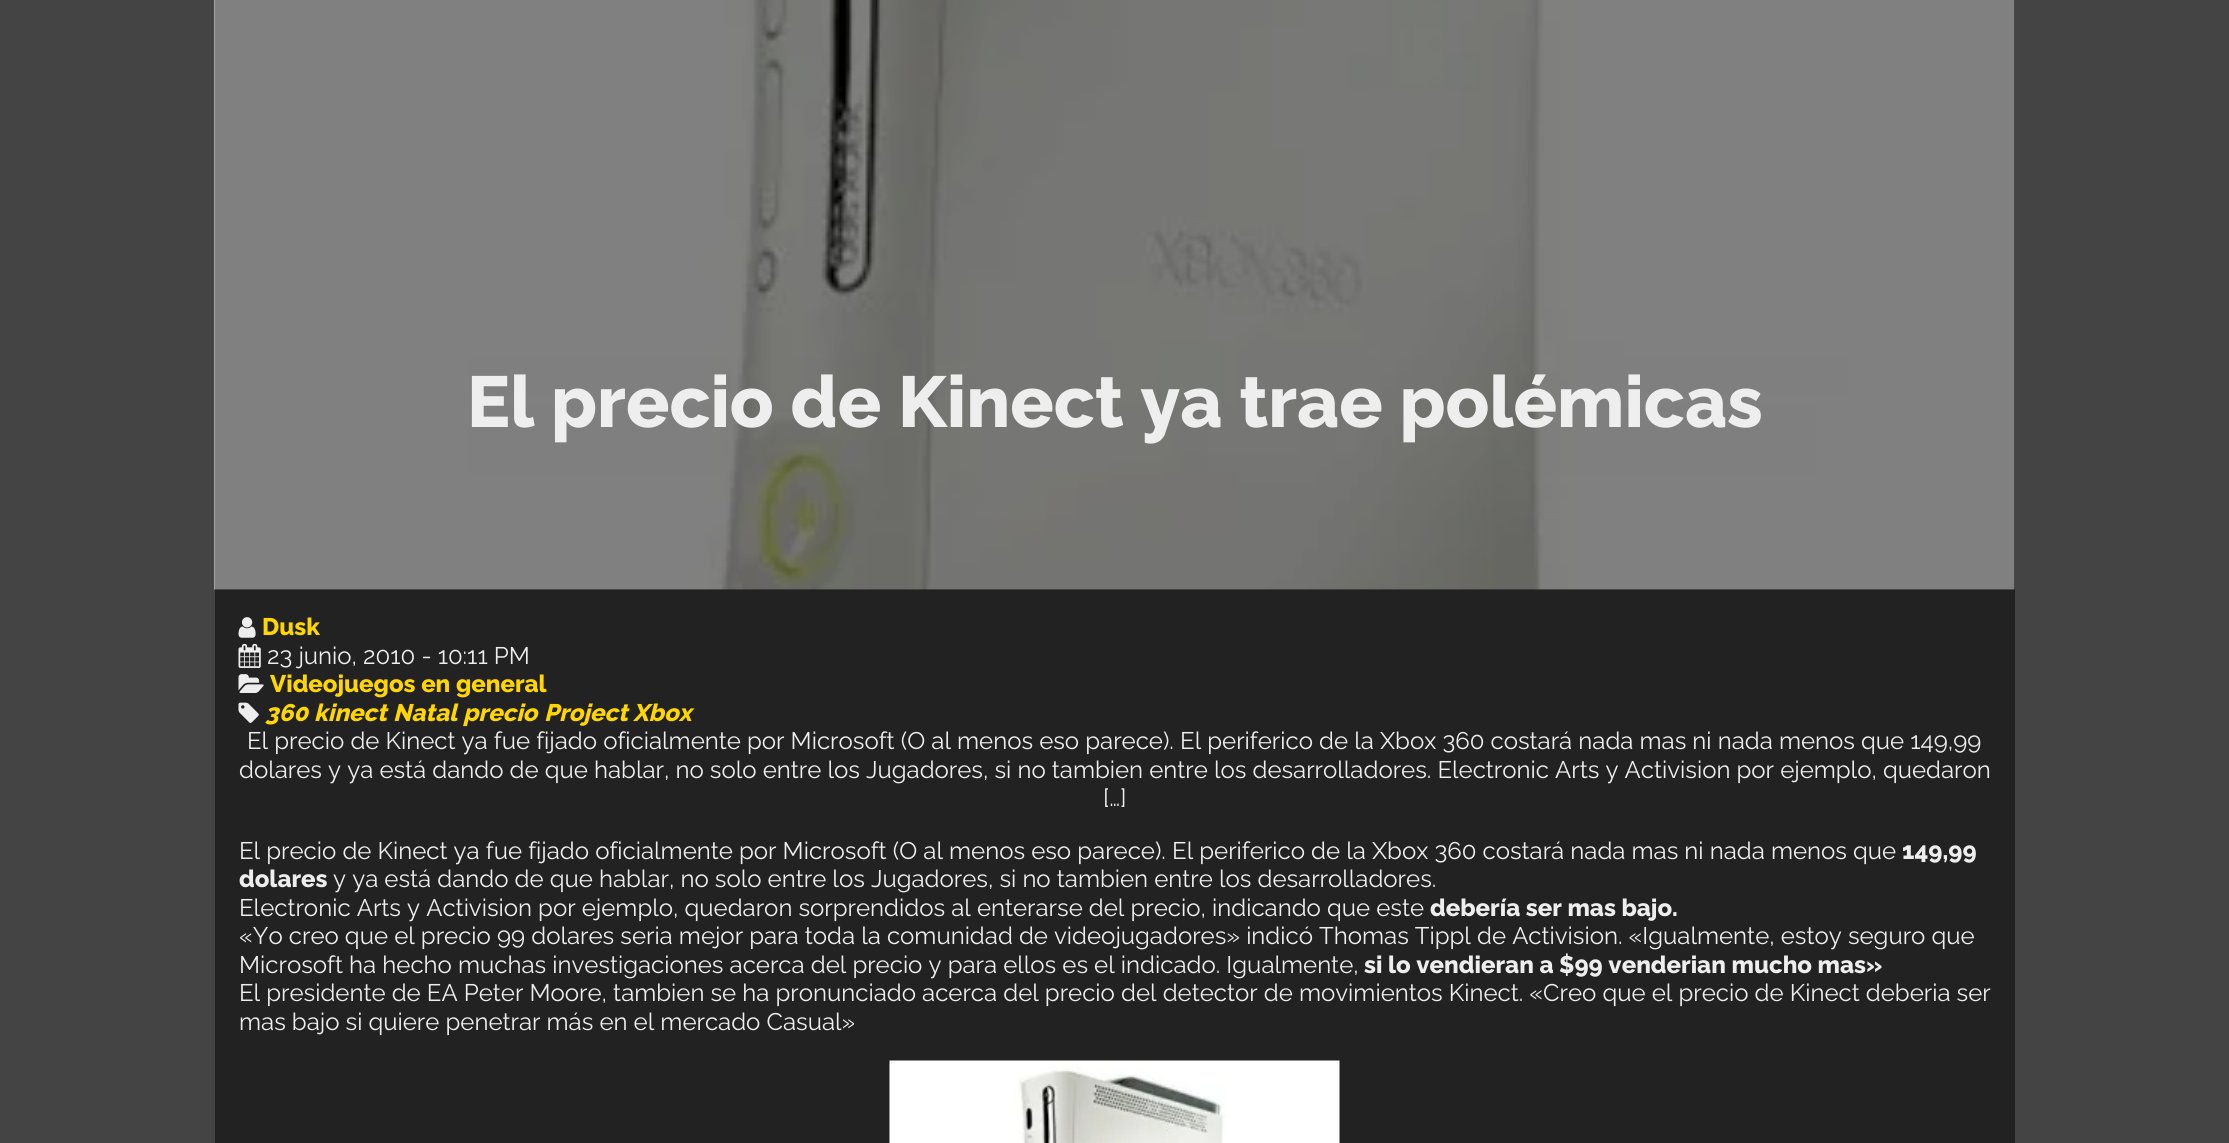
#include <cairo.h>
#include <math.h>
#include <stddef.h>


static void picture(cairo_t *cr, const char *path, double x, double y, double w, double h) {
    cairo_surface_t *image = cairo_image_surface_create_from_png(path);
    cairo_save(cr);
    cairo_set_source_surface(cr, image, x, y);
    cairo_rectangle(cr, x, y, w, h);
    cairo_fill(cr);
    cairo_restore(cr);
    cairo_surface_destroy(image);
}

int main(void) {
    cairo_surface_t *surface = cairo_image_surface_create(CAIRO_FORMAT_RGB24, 2229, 1143);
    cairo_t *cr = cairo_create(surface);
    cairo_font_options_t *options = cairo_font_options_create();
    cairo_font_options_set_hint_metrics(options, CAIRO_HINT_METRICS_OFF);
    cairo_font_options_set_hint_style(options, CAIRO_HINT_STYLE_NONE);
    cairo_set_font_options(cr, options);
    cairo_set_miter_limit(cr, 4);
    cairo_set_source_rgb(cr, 0.267, 0.267, 0.267);
    cairo_paint(cr);
    cairo_set_source_rgb(cr, 0.133, 0.133, 0.133);
    cairo_rectangle(cr, 215, 590, 1800, 553);
    cairo_fill(cr);
    cairo_set_source_rgb(cr, 0.067, 0.067, 0.067);
    cairo_rectangle(cr, 215, 0, 1800, 590);
    cairo_fill(cr);
    picture(cr, "img1.png", 214, 0, 1801, 590);
    cairo_select_font_face(cr, "Raleway ExtraBold", CAIRO_FONT_SLANT_NORMAL, CAIRO_FONT_WEIGHT_NORMAL);
    cairo_set_font_size(cr, 72);
    cairo_set_source_rgb(cr, 0.933, 0.933, 0.933);
    cairo_move_to(cr, 467, 427);
    cairo_show_text(cr, "El precio de Kinect ya trae polémicas");
    picture(cr, "img2.png", 238, 617, 18, 21);
    cairo_set_font_size(cr, 24);
    cairo_set_source_rgb(cr, 1, 0.839, 0);
    cairo_move_to(cr, 262, 635);
    cairo_show_text(cr, "Dusk");
    picture(cr, "img3.png", 238, 643, 23, 25);
    cairo_select_font_face(cr, "Raleway", CAIRO_FONT_SLANT_NORMAL, CAIRO_FONT_WEIGHT_NORMAL);
    cairo_set_source_rgb(cr, 0.933, 0.933, 0.933);
    cairo_move_to(cr, 267, 664);
    cairo_show_text(cr, "23 junio, 2010 - 10:11 PM");
    picture(cr, "img4.png", 238, 674, 26, 19);
    cairo_select_font_face(cr, "Raleway ExtraBold", CAIRO_FONT_SLANT_NORMAL, CAIRO_FONT_WEIGHT_NORMAL);
    cairo_set_source_rgb(cr, 1, 0.839, 0);
    cairo_move_to(cr, 270, 692);
    cairo_show_text(cr, "Videojuegos en general");
    picture(cr, "img5.png", 238, 702, 21, 21);
    cairo_select_font_face(cr, "Raleway ExtraBold", CAIRO_FONT_SLANT_ITALIC, CAIRO_FONT_WEIGHT_NORMAL);
    cairo_move_to(cr, 265, 721);
    cairo_show_text(cr, "360");
    cairo_move_to(cr, 314, 721);
    cairo_show_text(cr, "kinect");
    cairo_move_to(cr, 393, 721);
    cairo_show_text(cr, "Natal");
    cairo_move_to(cr, 463, 721);
    cairo_show_text(cr, "precio");
    cairo_move_to(cr, 544, 721);
    cairo_show_text(cr, "Project");
    cairo_move_to(cr, 633, 721);
    cairo_show_text(cr, "Xbox");
    cairo_select_font_face(cr, "Raleway", CAIRO_FONT_SLANT_NORMAL, CAIRO_FONT_WEIGHT_NORMAL);
    cairo_set_source_rgb(cr, 0.933, 0.933, 0.933);
    cairo_move_to(cr, 247, 749);
    cairo_show_text(cr, "El precio de Kinect ya fue fijado oficialmente por Microsoft (O al menos eso parece). El periferico de la Xbox 360 costará nada mas ni nada menos que 149,99");
    cairo_move_to(cr, 239, 778);
    cairo_show_text(cr, "dolares y ya está dando de que hablar, no solo entre los Jugadores, si no tambien entre los desarrolladores. Electronic Arts y Activision por ejemplo, quedaron");
    cairo_move_to(cr, 1103, 806);
    cairo_show_text(cr, "[…]");
    cairo_move_to(cr, 239, 859);
    cairo_show_text(cr, "El precio de Kinect ya fue fijado oficialmente por Microsoft (O al menos eso parece). El periferico de la Xbox 360 costará nada mas ni nada menos que");
    cairo_select_font_face(cr, "Raleway ExtraBold", CAIRO_FONT_SLANT_NORMAL, CAIRO_FONT_WEIGHT_NORMAL);
    cairo_move_to(cr, 1902, 859);
    cairo_show_text(cr, "149,99");
    cairo_move_to(cr, 239, 887);
    cairo_show_text(cr, "dolares");
    cairo_select_font_face(cr, "Raleway", CAIRO_FONT_SLANT_NORMAL, CAIRO_FONT_WEIGHT_NORMAL);
    cairo_move_to(cr, 333, 887);
    cairo_show_text(cr, "y ya está dando de que hablar, no solo entre los Jugadores, si no tambien entre los desarrolladores.");
    cairo_move_to(cr, 239, 916);
    cairo_show_text(cr, "Electronic Arts y Activision por ejemplo, quedaron sorprendidos al enterarse del precio, indicando que este");
    cairo_select_font_face(cr, "Raleway ExtraBold", CAIRO_FONT_SLANT_NORMAL, CAIRO_FONT_WEIGHT_NORMAL);
    cairo_move_to(cr, 1430, 916);
    cairo_show_text(cr, "debería ser mas bajo.");
    cairo_select_font_face(cr, "Raleway", CAIRO_FONT_SLANT_NORMAL, CAIRO_FONT_WEIGHT_NORMAL);
    cairo_move_to(cr, 239, 944);
    cairo_show_text(cr, "«Yo creo que el precio 99 dolares seria mejor para toda la comunidad de videojugadores» indicó Thomas Tippl de Activision. «Igualmente, estoy seguro que");
    cairo_move_to(cr, 239, 973);
    cairo_show_text(cr, "Microsoft ha hecho muchas investigaciones acerca del precio y para ellos es el indicado. Igualmente,");
    cairo_select_font_face(cr, "Raleway ExtraBold", CAIRO_FONT_SLANT_NORMAL, CAIRO_FONT_WEIGHT_NORMAL);
    cairo_move_to(cr, 1364, 973);
    cairo_show_text(cr, "si lo vendieran a $99 venderian mucho mas»");
    cairo_select_font_face(cr, "Raleway", CAIRO_FONT_SLANT_NORMAL, CAIRO_FONT_WEIGHT_NORMAL);
    cairo_move_to(cr, 239, 1001);
    cairo_show_text(cr, "El presidente de EA Peter Moore, tambien se ha pronunciado acerca del precio del detector de movimientos Kinect. «Creo que el precio de Kinect deberia ser");
    cairo_move_to(cr, 239, 1030);
    cairo_show_text(cr, "mas bajo si quiere penetrar más en el mercado Casual»");
    picture(cr, "img6.png", 889, 1060, 451, 83);
    cairo_surface_write_to_png(surface, "page.png");
    cairo_font_options_destroy(options);
    cairo_destroy(cr);
    cairo_surface_destroy(surface);
    return 0;
}
